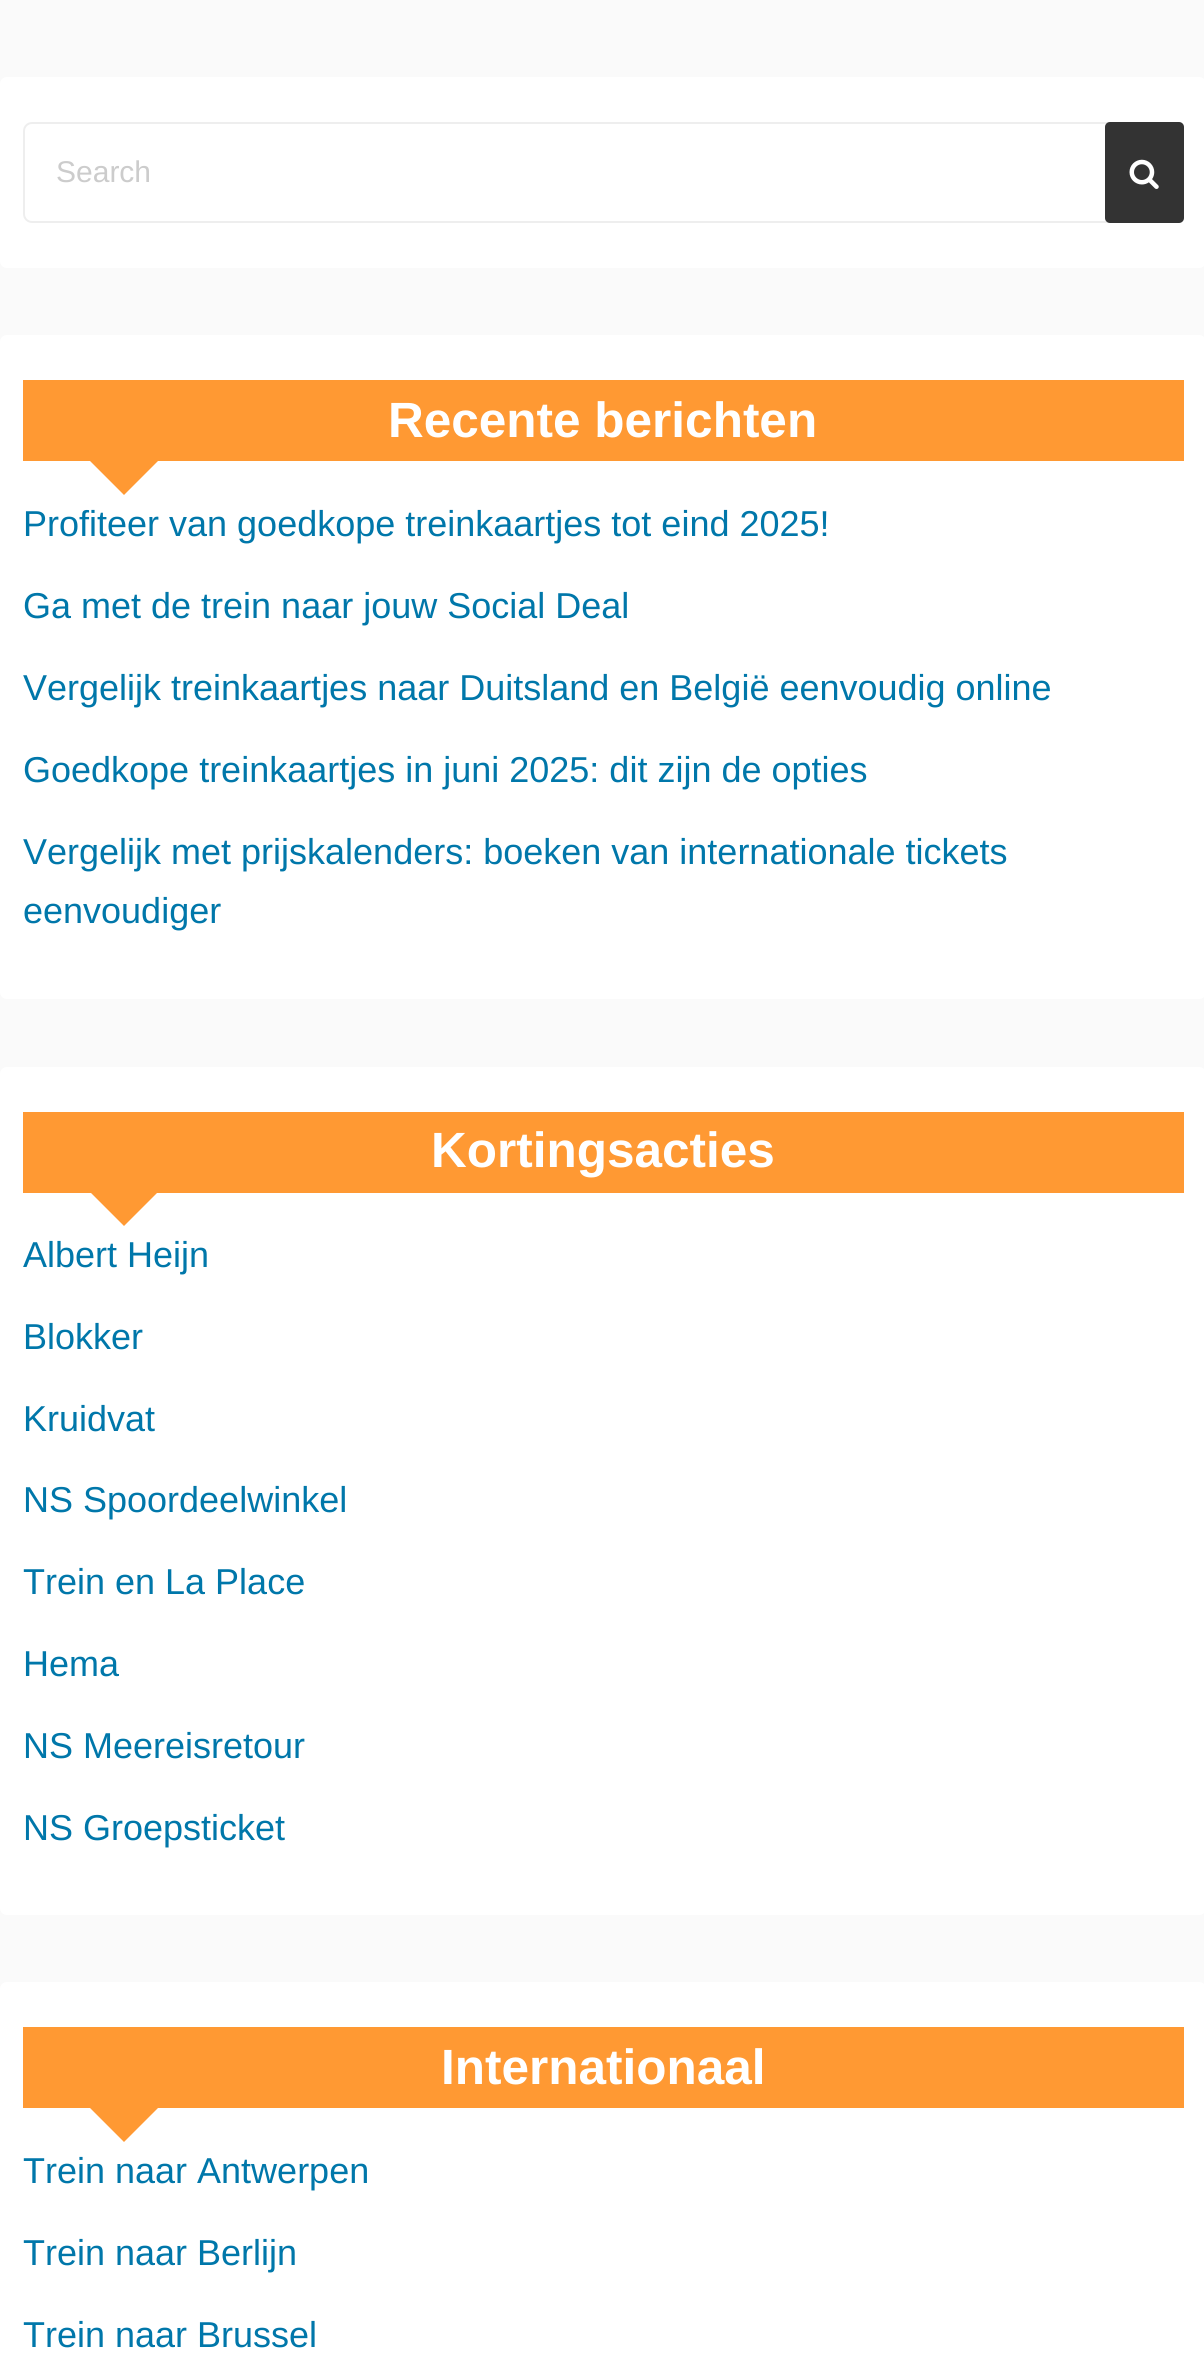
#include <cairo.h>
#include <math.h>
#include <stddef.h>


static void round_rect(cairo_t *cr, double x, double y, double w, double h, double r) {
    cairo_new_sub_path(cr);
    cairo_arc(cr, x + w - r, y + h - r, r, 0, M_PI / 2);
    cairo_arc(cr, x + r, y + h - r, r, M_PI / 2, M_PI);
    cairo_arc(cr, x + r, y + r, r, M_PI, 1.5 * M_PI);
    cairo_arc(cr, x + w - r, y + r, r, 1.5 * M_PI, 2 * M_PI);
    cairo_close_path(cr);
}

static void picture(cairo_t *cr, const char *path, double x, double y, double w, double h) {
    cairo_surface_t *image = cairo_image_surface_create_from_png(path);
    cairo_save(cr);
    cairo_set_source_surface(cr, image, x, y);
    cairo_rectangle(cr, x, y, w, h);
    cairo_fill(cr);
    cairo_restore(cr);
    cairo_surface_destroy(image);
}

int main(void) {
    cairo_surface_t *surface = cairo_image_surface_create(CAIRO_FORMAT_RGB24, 1204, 2375);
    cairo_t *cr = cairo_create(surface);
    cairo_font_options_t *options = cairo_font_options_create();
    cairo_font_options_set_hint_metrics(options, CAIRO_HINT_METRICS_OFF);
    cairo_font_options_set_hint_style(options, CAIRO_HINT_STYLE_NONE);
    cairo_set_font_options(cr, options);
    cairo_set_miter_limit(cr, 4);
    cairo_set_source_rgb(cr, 0.98, 0.98, 0.98);
    cairo_paint(cr);
    cairo_set_source_rgb(cr, 1, 1, 1);
    round_rect(cr, 0, 77, 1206, 191, 7);
    cairo_fill(cr);
    round_rect(cr, 24, 123, 1159, 99, 8);
    cairo_set_source_rgb(cr, 0.933, 0.933, 0.933);
    cairo_stroke(cr);
    cairo_select_font_face(cr, "Liberation Sans", CAIRO_FONT_SLANT_NORMAL, CAIRO_FONT_WEIGHT_NORMAL);
    cairo_set_font_size(cr, 30);
    cairo_set_source_rgb(cr, 0.8, 0.8, 0.8);
    cairo_move_to(cr, 56, 182);
    cairo_show_text(cr, "Search");
    cairo_set_source_rgb(cr, 0.2, 0.2, 0.2);
    round_rect(cr, 1105, 122, 79, 101, 5);
    cairo_fill(cr);
    picture(cr, "img1.png", 1129, 159, 30, 30);
    cairo_set_source_rgb(cr, 1, 1, 1);
    round_rect(cr, 0, 335, 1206, 664, 7);
    cairo_fill(cr);
    cairo_set_source_rgb(cr, 1, 0.6, 0.2);
    cairo_rectangle(cr, 23, 380, 1161, 81);
    cairo_fill(cr);
    cairo_select_font_face(cr, "Liberation Sans", CAIRO_FONT_SLANT_NORMAL, CAIRO_FONT_WEIGHT_BOLD);
    cairo_set_font_size(cr, 49.5);
    cairo_set_source_rgb(cr, 1, 1, 1);
    cairo_move_to(cr, 388, 437);
    cairo_show_text(cr, "Recente berichten");
    cairo_set_source_rgb(cr, 1, 0.6, 0.2);
    cairo_new_path(cr);
    cairo_move_to(cr, 90, 461);
    cairo_line_to(cr, 158, 461);
    cairo_line_to(cr, 124, 495);
    cairo_close_path(cr);
    cairo_fill(cr);
    cairo_select_font_face(cr, "Liberation Sans", CAIRO_FONT_SLANT_NORMAL, CAIRO_FONT_WEIGHT_NORMAL);
    cairo_set_font_size(cr, 36);
    cairo_set_source_rgb(cr, 0, 0.467, 0.667);
    cairo_move_to(cr, 23, 536);
    cairo_show_text(cr, "Profiteer van goedkope treinkaartjes tot eind 2025!");
    cairo_move_to(cr, 23, 618);
    cairo_show_text(cr, "Ga met de trein naar jouw Social Deal");
    cairo_move_to(cr, 23, 700);
    cairo_show_text(cr, "Vergelijk treinkaartjes naar Duitsland en België eenvoudig online");
    cairo_move_to(cr, 23, 782);
    cairo_show_text(cr, "Goedkope treinkaartjes in juni 2025: dit zijn de opties");
    cairo_move_to(cr, 23, 864);
    cairo_show_text(cr, "Vergelijk met prijskalenders: boeken van internationale tickets");
    cairo_move_to(cr, 23, 923);
    cairo_show_text(cr, "eenvoudiger");
    cairo_set_source_rgb(cr, 1, 1, 1);
    round_rect(cr, 0, 1067, 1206, 848, 7);
    cairo_fill(cr);
    cairo_set_source_rgb(cr, 1, 0.6, 0.2);
    cairo_rectangle(cr, 23, 1112, 1161, 81);
    cairo_fill(cr);
    cairo_select_font_face(cr, "Liberation Sans", CAIRO_FONT_SLANT_NORMAL, CAIRO_FONT_WEIGHT_BOLD);
    cairo_set_font_size(cr, 49.5);
    cairo_set_source_rgb(cr, 1, 1, 1);
    cairo_move_to(cr, 431, 1167);
    cairo_show_text(cr, "Kortingsacties");
    cairo_set_source_rgb(cr, 1, 0.6, 0.2);
    cairo_new_path(cr);
    cairo_move_to(cr, 90, 1192);
    cairo_line_to(cr, 158, 1192);
    cairo_line_to(cr, 124, 1226);
    cairo_close_path(cr);
    cairo_fill(cr);
    cairo_select_font_face(cr, "Liberation Sans", CAIRO_FONT_SLANT_NORMAL, CAIRO_FONT_WEIGHT_NORMAL);
    cairo_set_font_size(cr, 36);
    cairo_set_source_rgb(cr, 0, 0.467, 0.667);
    cairo_move_to(cr, 23, 1267);
    cairo_show_text(cr, "Albert Heijn");
    cairo_move_to(cr, 23, 1349);
    cairo_show_text(cr, "Blokker");
    cairo_move_to(cr, 23, 1431);
    cairo_show_text(cr, "Kruidvat");
    cairo_move_to(cr, 23, 1512);
    cairo_show_text(cr, "NS Spoordeelwinkel");
    cairo_move_to(cr, 23, 1594);
    cairo_show_text(cr, "Trein en La Place");
    cairo_move_to(cr, 23, 1676);
    cairo_show_text(cr, "Hema");
    cairo_move_to(cr, 23, 1758);
    cairo_show_text(cr, "NS Meereisretour");
    cairo_move_to(cr, 23, 1840);
    cairo_show_text(cr, "NS Groepsticket");
    cairo_set_source_rgb(cr, 1, 1, 1);
    round_rect(cr, 0, 1982, 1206, 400, 7);
    cairo_fill(cr);
    cairo_set_source_rgb(cr, 1, 0.6, 0.2);
    cairo_rectangle(cr, 23, 2027, 1161, 81);
    cairo_fill(cr);
    cairo_select_font_face(cr, "Liberation Sans", CAIRO_FONT_SLANT_NORMAL, CAIRO_FONT_WEIGHT_BOLD);
    cairo_set_font_size(cr, 49.5);
    cairo_set_source_rgb(cr, 1, 1, 1);
    cairo_move_to(cr, 441, 2084);
    cairo_show_text(cr, "Internationaal");
    cairo_set_source_rgb(cr, 1, 0.6, 0.2);
    cairo_new_path(cr);
    cairo_move_to(cr, 90, 2108);
    cairo_line_to(cr, 158, 2108);
    cairo_line_to(cr, 124, 2142);
    cairo_close_path(cr);
    cairo_fill(cr);
    cairo_select_font_face(cr, "Liberation Sans", CAIRO_FONT_SLANT_NORMAL, CAIRO_FONT_WEIGHT_NORMAL);
    cairo_set_font_size(cr, 36);
    cairo_set_source_rgb(cr, 0, 0.467, 0.667);
    cairo_move_to(cr, 23, 2183);
    cairo_show_text(cr, "Trein naar Antwerpen");
    cairo_move_to(cr, 23, 2265);
    cairo_show_text(cr, "Trein naar Berlijn");
    cairo_move_to(cr, 23, 2347);
    cairo_show_text(cr, "Trein naar Brussel");
    cairo_surface_write_to_png(surface, "page.png");
    cairo_font_options_destroy(options);
    cairo_destroy(cr);
    cairo_surface_destroy(surface);
    return 0;
}
